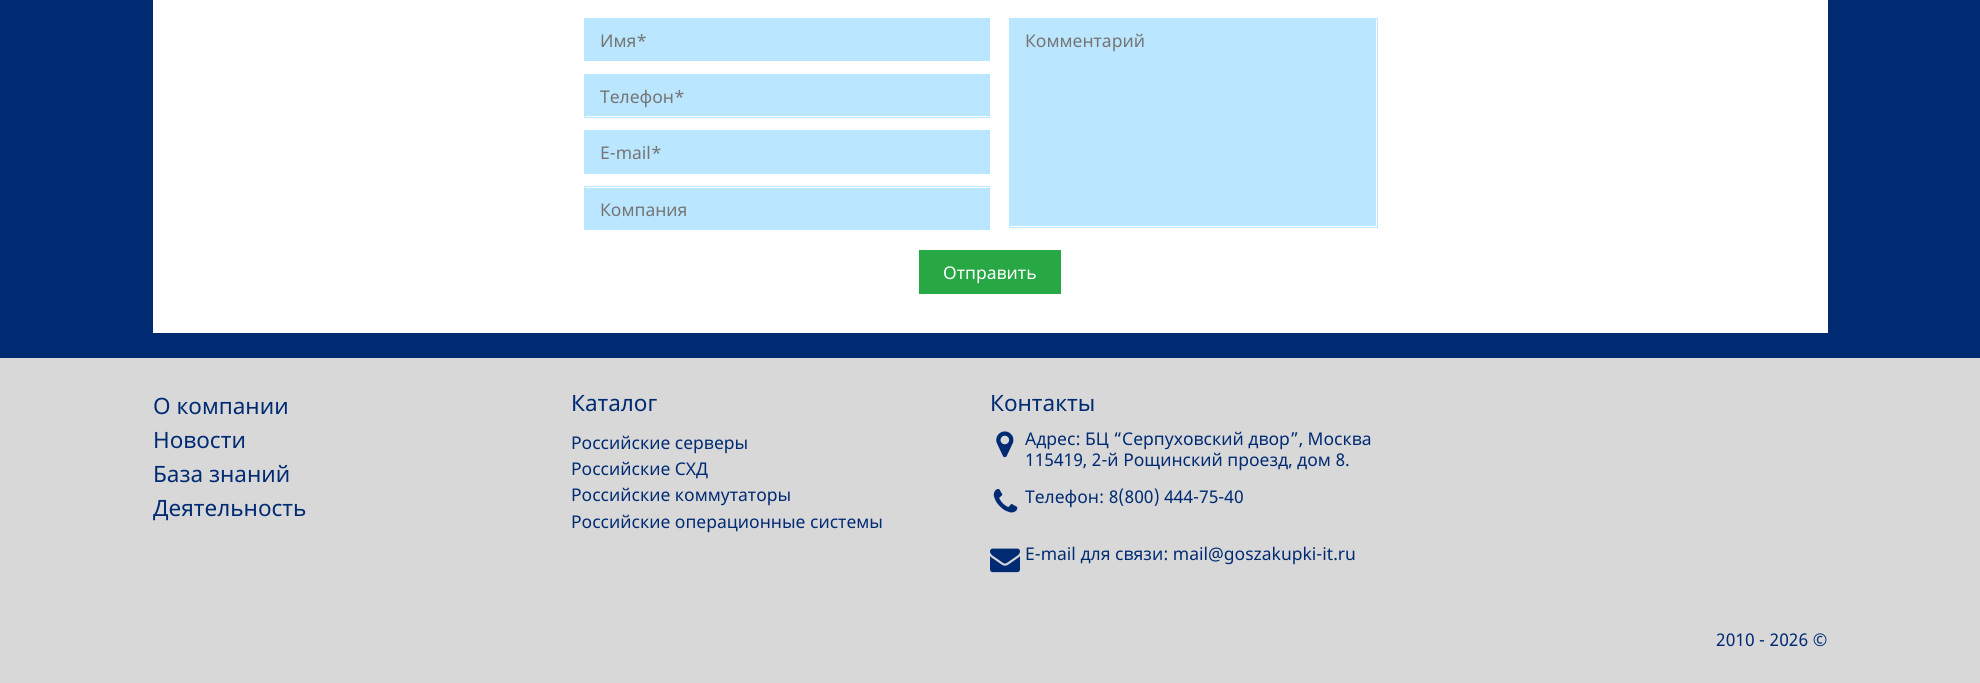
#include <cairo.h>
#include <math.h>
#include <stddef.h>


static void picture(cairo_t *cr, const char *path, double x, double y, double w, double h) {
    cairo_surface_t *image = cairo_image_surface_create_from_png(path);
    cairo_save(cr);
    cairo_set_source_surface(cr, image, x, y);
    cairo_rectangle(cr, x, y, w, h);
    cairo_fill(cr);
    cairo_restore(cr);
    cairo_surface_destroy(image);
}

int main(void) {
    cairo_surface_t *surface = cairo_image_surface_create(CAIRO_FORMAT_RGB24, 1980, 683);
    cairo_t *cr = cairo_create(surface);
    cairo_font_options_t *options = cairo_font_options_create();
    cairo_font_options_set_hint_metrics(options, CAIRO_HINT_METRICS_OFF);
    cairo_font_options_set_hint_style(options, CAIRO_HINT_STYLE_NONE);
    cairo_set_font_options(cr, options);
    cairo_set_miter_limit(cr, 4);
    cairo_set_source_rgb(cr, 0, 0.169, 0.451);
    cairo_paint(cr);
    cairo_set_source_rgb(cr, 1, 1, 1);
    cairo_rectangle(cr, 153, 0, 1675, 333);
    cairo_fill(cr);
    cairo_set_source_rgb(cr, 0.729, 0.902, 1);
    cairo_rectangle(cr, 584.5, 18.5, 405, 42);
    cairo_fill_preserve(cr);
    cairo_set_line_width(cr, 1);
    cairo_stroke(cr);
    cairo_select_font_face(cr, "Noto Sans", CAIRO_FONT_SLANT_NORMAL, CAIRO_FONT_WEIGHT_NORMAL);
    cairo_set_font_size(cr, 17.5);
    cairo_set_source_rgb(cr, 0.459, 0.459, 0.459);
    cairo_move_to(cr, 600, 47);
    cairo_show_text(cr, "Имя*");
    cairo_set_source_rgb(cr, 0.729, 0.902, 1);
    cairo_rectangle(cr, 585, 75, 404, 41);
    cairo_fill(cr);
    cairo_rectangle(cr, 584.5, 74.5, 405, 43);
    cairo_stroke(cr);
    cairo_set_source_rgb(cr, 0.459, 0.459, 0.459);
    cairo_move_to(cr, 600, 103);
    cairo_show_text(cr, "Телефон*");
    cairo_set_source_rgb(cr, 0.729, 0.902, 1);
    cairo_rectangle(cr, 584.5, 130.5, 405, 43);
    cairo_fill_preserve(cr);
    cairo_stroke(cr);
    cairo_set_source_rgb(cr, 0.459, 0.459, 0.459);
    cairo_move_to(cr, 600, 159);
    cairo_show_text(cr, "E-mail*");
    cairo_set_source_rgb(cr, 0.729, 0.902, 1);
    cairo_rectangle(cr, 585, 188, 404, 41);
    cairo_fill(cr);
    cairo_rectangle(cr, 584.5, 186.5, 405, 43);
    cairo_stroke(cr);
    cairo_set_source_rgb(cr, 0.459, 0.459, 0.459);
    cairo_move_to(cr, 600, 216);
    cairo_show_text(cr, "Компания");
    cairo_set_source_rgb(cr, 0.729, 0.902, 1);
    cairo_rectangle(cr, 1010, 19, 366, 207);
    cairo_fill(cr);
    cairo_rectangle(cr, 1009.5, 18.5, 368, 209);
    cairo_stroke(cr);
    cairo_set_source_rgb(cr, 0.459, 0.459, 0.459);
    cairo_move_to(cr, 1025, 47);
    cairo_show_text(cr, "Комментарий");
    cairo_set_source_rgb(cr, 0.157, 0.655, 0.271);
    cairo_rectangle(cr, 919, 250, 142, 44);
    cairo_fill(cr);
    cairo_set_source_rgb(cr, 1, 1, 1);
    cairo_move_to(cr, 943, 279);
    cairo_show_text(cr, "Отправить");
    cairo_set_source_rgb(cr, 0.847, 0.847, 0.847);
    cairo_rectangle(cr, 0, 358, 1980, 325);
    cairo_fill(cr);
    cairo_set_font_size(cr, 22.5);
    cairo_set_source_rgb(cr, 0, 0.169, 0.451);
    cairo_move_to(cr, 153, 414);
    cairo_show_text(cr, "О компании");
    cairo_move_to(cr, 153, 448);
    cairo_show_text(cr, "Новости");
    cairo_move_to(cr, 153, 482);
    cairo_show_text(cr, "База знаний");
    cairo_move_to(cr, 153, 516);
    cairo_show_text(cr, "Деятельность");
    cairo_move_to(cr, 571, 411);
    cairo_show_text(cr, "Каталог");
    cairo_set_font_size(cr, 17.5);
    cairo_move_to(cr, 571, 449);
    cairo_show_text(cr, "Российские серверы");
    cairo_move_to(cr, 571, 475);
    cairo_show_text(cr, "Российские СХД");
    cairo_move_to(cr, 571, 501);
    cairo_show_text(cr, "Российские коммутаторы");
    cairo_move_to(cr, 571, 528);
    cairo_show_text(cr, "Российские операционные системы");
    cairo_set_font_size(cr, 22.5);
    cairo_move_to(cr, 990, 411);
    cairo_show_text(cr, "Контакты");
    picture(cr, "img1.png", 996, 431, 18, 27);
    cairo_set_font_size(cr, 17.5);
    cairo_move_to(cr, 1025, 445);
    cairo_show_text(cr, "Адрес: БЦ “Серпуховский двор”, Москва");
    cairo_move_to(cr, 1025, 466);
    cairo_show_text(cr, "115419, 2-й Рощинский проезд, дом 8.");
    picture(cr, "img2.png", 993, 488, 25, 25);
    cairo_move_to(cr, 1025, 503);
    cairo_show_text(cr, "Телефон: 8(800) 444-75-40");
    picture(cr, "img3.png", 990, 548, 30, 25);
    cairo_move_to(cr, 1025, 560);
    cairo_show_text(cr, "E-mail для связи: mail@goszakupki-it.ru");
    cairo_move_to(cr, 1716, 646);
    cairo_show_text(cr, "2010 - 2026 ©");
    cairo_surface_write_to_png(surface, "page.png");
    cairo_font_options_destroy(options);
    cairo_destroy(cr);
    cairo_surface_destroy(surface);
    return 0;
}
